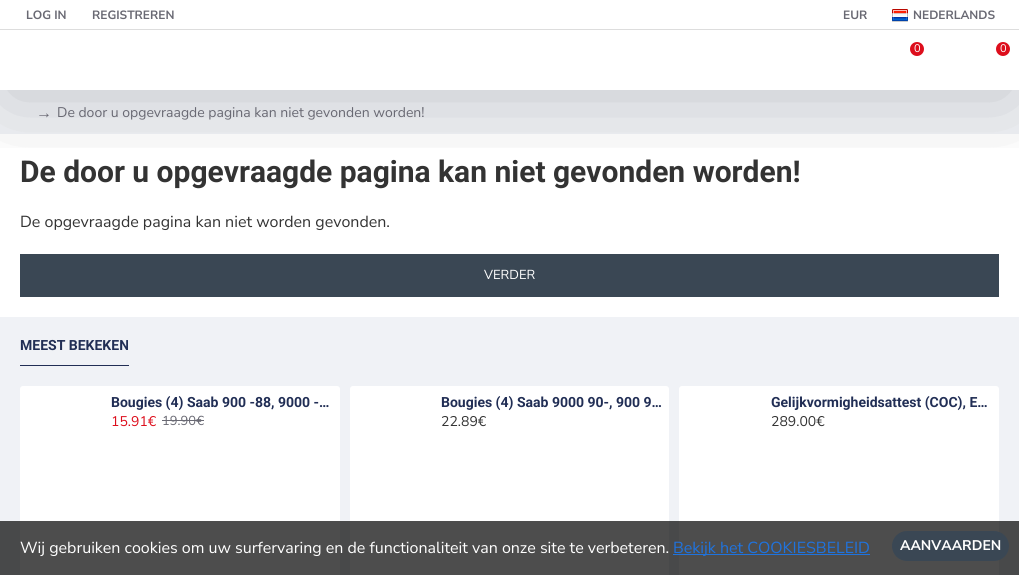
#include <cairo.h>
#include <math.h>
#include <stddef.h>


static void round_rect(cairo_t *cr, double x, double y, double w, double h, double r) {
    cairo_new_sub_path(cr);
    cairo_arc(cr, x + w - r, y + h - r, r, 0, M_PI / 2);
    cairo_arc(cr, x + r, y + h - r, r, M_PI / 2, M_PI);
    cairo_arc(cr, x + r, y + r, r, M_PI, 1.5 * M_PI);
    cairo_arc(cr, x + w - r, y + r, r, 1.5 * M_PI, 2 * M_PI);
    cairo_close_path(cr);
}

static void shadow(cairo_t *cr, double x, double y, double w, double h, double r, double blur, double alpha) {
    cairo_push_group_with_content(cr, CAIRO_CONTENT_ALPHA);
    cairo_set_operator(cr, CAIRO_OPERATOR_SOURCE);
    for (int i = 15; i >= -15 && fmin(w, h) + blur * i / 3 > 0; i -= 2) {
        double e = blur * i / 6;
        cairo_set_source_rgba(cr, 0, 0, 0, alpha * erfc((i - 1) / 8.5) / 2);
        round_rect(cr, x - e, y - e, w + 2 * e, h + 2 * e, fmax(0, fmin(r + e + blur * .6, fmin(w, h) / 2 + e)));
        cairo_fill(cr);
    }
    cairo_pattern_t *soft = cairo_pop_group(cr);
    cairo_mask(cr, soft);
    cairo_pattern_destroy(soft);
}

static void picture(cairo_t *cr, const char *path, double x, double y, double w, double h) {
    cairo_surface_t *image = cairo_image_surface_create_from_png(path);
    cairo_save(cr);
    cairo_set_source_surface(cr, image, x, y);
    cairo_rectangle(cr, x, y, w, h);
    cairo_fill(cr);
    cairo_restore(cr);
    cairo_surface_destroy(image);
}

int main(void) {
    cairo_surface_t *surface = cairo_image_surface_create(CAIRO_FORMAT_RGB24, 1019, 575);
    cairo_t *cr = cairo_create(surface);
    cairo_font_options_t *options = cairo_font_options_create();
    cairo_font_options_set_hint_metrics(options, CAIRO_HINT_METRICS_OFF);
    cairo_font_options_set_hint_style(options, CAIRO_HINT_STYLE_NONE);
    cairo_set_font_options(cr, options);
    cairo_set_miter_limit(cr, 4);
    cairo_set_source_rgb(cr, 1, 1, 1);
    cairo_paint(cr);
    cairo_set_source_rgb(cr, 0.941, 0.949, 0.961);
    cairo_rectangle(cr, 0, 90, 1019, 44);
    cairo_fill(cr);
    cairo_save(cr);
    cairo_rectangle(cr, 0, 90, 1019, 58);
    cairo_clip(cr);
    cairo_set_source_rgb(cr, 0, 0, 0);
    shadow(cr, 10, 55, 999, 40, 0, 45, 0.2);
    cairo_restore(cr);
    cairo_set_source_rgb(cr, 1, 1, 1);
    cairo_rectangle(cr, 0, 0, 1019, 29);
    cairo_fill(cr);
    cairo_set_source_rgb(cr, 0.867, 0.867, 0.867);
    cairo_rectangle(cr, 0, 29, 1019, 1);
    cairo_fill(cr);
    cairo_select_font_face(cr, "Nunito Sans", CAIRO_FONT_SLANT_NORMAL, CAIRO_FONT_WEIGHT_BOLD);
    cairo_set_font_size(cr, 12);
    cairo_set_source_rgb(cr, 0.412, 0.412, 0.451);
    cairo_move_to(cr, 26, 19);
    cairo_show_text(cr, "LOG IN");
    cairo_move_to(cr, 92, 19);
    cairo_show_text(cr, "REGISTREREN");
    cairo_move_to(cr, 843, 19);
    cairo_show_text(cr, "EUR");
    picture(cr, "img1.png", 892, 9, 16, 13);
    cairo_move_to(cr, 913, 19);
    cairo_show_text(cr, "NEDERLANDS");
    cairo_set_source_rgb(cr, 0.867, 0.055, 0.11);
    cairo_new_path(cr);
    cairo_arc(cr, 917, 49, 8, 0, 2 * M_PI);
    cairo_fill_preserve(cr);
    cairo_set_source_rgb(cr, 1, 1, 1);
    cairo_stroke(cr);
    cairo_select_font_face(cr, "Nunito Sans", CAIRO_FONT_SLANT_NORMAL, CAIRO_FONT_WEIGHT_NORMAL);
    cairo_set_font_size(cr, 11);
    cairo_move_to(cr, 914, 52);
    cairo_show_text(cr, "0");
    cairo_set_source_rgb(cr, 0.867, 0.055, 0.11);
    cairo_new_path(cr);
    cairo_arc(cr, 1003, 49, 8, 0, 2 * M_PI);
    cairo_fill_preserve(cr);
    cairo_set_source_rgb(cr, 1, 1, 1);
    cairo_stroke(cr);
    cairo_move_to(cr, 1000, 52);
    cairo_show_text(cr, "0");
    cairo_select_font_face(cr, "Liberation Serif", CAIRO_FONT_SLANT_NORMAL, CAIRO_FONT_WEIGHT_NORMAL);
    cairo_set_font_size(cr, 16);
    cairo_set_source_rgb(cr, 0.412, 0.412, 0.451);
    cairo_move_to(cr, 36, 118);
    cairo_show_text(cr, "→");
    cairo_select_font_face(cr, "Nunito Sans", CAIRO_FONT_SLANT_NORMAL, CAIRO_FONT_WEIGHT_NORMAL);
    cairo_set_font_size(cr, 14);
    cairo_move_to(cr, 57, 117);
    cairo_show_text(cr, "De door u opgevraagde pagina kan niet gevonden worden!");
    cairo_select_font_face(cr, "Roboto", CAIRO_FONT_SLANT_NORMAL, CAIRO_FONT_WEIGHT_BOLD);
    cairo_set_font_size(cr, 30);
    cairo_set_source_rgb(cr, 0.2, 0.2, 0.2);
    cairo_move_to(cr, 20, 182);
    cairo_show_text(cr, "De door u opgevraagde pagina kan niet gevonden worden!");
    cairo_select_font_face(cr, "Nunito Sans", CAIRO_FONT_SLANT_NORMAL, CAIRO_FONT_WEIGHT_NORMAL);
    cairo_set_font_size(cr, 16);
    cairo_move_to(cr, 20, 227);
    cairo_show_text(cr, "De opgevraagde pagina kan niet worden gevonden.");
    cairo_set_source_rgb(cr, 0.227, 0.278, 0.329);
    cairo_rectangle(cr, 20, 254, 979, 43);
    cairo_fill(cr);
    cairo_set_font_size(cr, 13);
    cairo_set_source_rgb(cr, 1, 1, 1);
    cairo_move_to(cr, 484, 279);
    cairo_show_text(cr, "VERDER");
    cairo_set_source_rgb(cr, 0.941, 0.949, 0.961);
    cairo_rectangle(cr, 0, 317, 1019, 204);
    cairo_fill(cr);
    cairo_set_source_rgb(cr, 0.282, 0.286, 0.29);
    cairo_rectangle(cr, 0, 521, 1019, 54);
    cairo_fill(cr);
    cairo_set_source_rgb(cr, 0.129, 0.18, 0.333);
    cairo_rectangle(cr, 20, 365, 109, 1);
    cairo_fill(cr);
    cairo_select_font_face(cr, "Roboto", CAIRO_FONT_SLANT_NORMAL, CAIRO_FONT_WEIGHT_BOLD);
    cairo_set_font_size(cr, 14);
    cairo_move_to(cr, 20, 350);
    cairo_show_text(cr, "MEEST BEKEKEN");
    cairo_set_source_rgb(cr, 1, 1, 1);
    round_rect(cr, 20, 386, 320, 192, 3);
    cairo_fill(cr);
    cairo_set_source_rgb(cr, 0.302, 0.302, 0.302);
    cairo_rectangle(cr, 20, 521, 320, 54);
    cairo_fill(cr);
    cairo_set_source_rgb(cr, 0.129, 0.18, 0.333);
    cairo_move_to(cr, 111, 407);
    cairo_show_text(cr, "Bougies (4) Saab 900 -88, 9000 -…");
    cairo_select_font_face(cr, "Nunito Sans", CAIRO_FONT_SLANT_NORMAL, CAIRO_FONT_WEIGHT_NORMAL);
    cairo_set_source_rgb(cr, 0.867, 0.055, 0.11);
    cairo_move_to(cr, 111, 426);
    cairo_show_text(cr, "15.91€");
    cairo_set_font_size(cr, 13);
    cairo_set_source_rgb(cr, 0.412, 0.412, 0.451);
    cairo_move_to(cr, 162, 425);
    cairo_show_text(cr, "19.90€");
    cairo_rectangle(cr, 162, 420, 42, 1);
    cairo_fill(cr);
    cairo_set_source_rgb(cr, 1, 1, 1);
    round_rect(cr, 350, 386, 319, 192, 3);
    cairo_fill(cr);
    cairo_set_source_rgb(cr, 0.302, 0.302, 0.302);
    cairo_rectangle(cr, 350, 521, 319, 54);
    cairo_fill(cr);
    cairo_select_font_face(cr, "Roboto", CAIRO_FONT_SLANT_NORMAL, CAIRO_FONT_WEIGHT_BOLD);
    cairo_set_font_size(cr, 14);
    cairo_set_source_rgb(cr, 0.129, 0.18, 0.333);
    cairo_move_to(cr, 441, 407);
    cairo_show_text(cr, "Bougies (4) Saab 9000 90-, 900 9…");
    cairo_select_font_face(cr, "Nunito Sans", CAIRO_FONT_SLANT_NORMAL, CAIRO_FONT_WEIGHT_NORMAL);
    cairo_set_source_rgb(cr, 0.2, 0.2, 0.2);
    cairo_move_to(cr, 441, 426);
    cairo_show_text(cr, "22.89€");
    cairo_set_source_rgb(cr, 1, 1, 1);
    round_rect(cr, 679, 386, 320, 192, 3);
    cairo_fill(cr);
    cairo_set_source_rgb(cr, 0.302, 0.302, 0.302);
    cairo_rectangle(cr, 679, 521, 320, 54);
    cairo_fill(cr);
    cairo_select_font_face(cr, "Roboto", CAIRO_FONT_SLANT_NORMAL, CAIRO_FONT_WEIGHT_BOLD);
    cairo_set_source_rgb(cr, 0.129, 0.18, 0.333);
    cairo_move_to(cr, 771, 407);
    cairo_show_text(cr, "Gelijkvormigheidsattest (COC), E…");
    cairo_select_font_face(cr, "Nunito Sans", CAIRO_FONT_SLANT_NORMAL, CAIRO_FONT_WEIGHT_NORMAL);
    cairo_set_source_rgb(cr, 0.2, 0.2, 0.2);
    cairo_move_to(cr, 771, 426);
    cairo_show_text(cr, "289.00€");
    cairo_set_font_size(cr, 16);
    cairo_set_source_rgb(cr, 1, 1, 1);
    cairo_move_to(cr, 20, 553);
    cairo_show_text(cr, "Wij gebruiken cookies om uw surfervaring en de functionaliteit van onze site te verbeteren.");
    cairo_set_source_rgb(cr, 0.122, 0.451, 0.871);
    cairo_rectangle(cr, 673, 554, 197, 1);
    cairo_fill(cr);
    cairo_move_to(cr, 673, 553);
    cairo_show_text(cr, "Bekijk het COOKIESBELEID");
    cairo_set_source_rgb(cr, 0.227, 0.278, 0.329);
    round_rect(cr, 892, 531, 117, 30, 15);
    cairo_fill(cr);
    cairo_select_font_face(cr, "Nunito Sans", CAIRO_FONT_SLANT_NORMAL, CAIRO_FONT_WEIGHT_BOLD);
    cairo_set_font_size(cr, 14);
    cairo_set_source_rgb(cr, 1, 1, 1);
    cairo_move_to(cr, 900, 550);
    cairo_show_text(cr, "AANVAARDEN");
    cairo_surface_write_to_png(surface, "page.png");
    cairo_font_options_destroy(options);
    cairo_destroy(cr);
    cairo_surface_destroy(surface);
    return 0;
}
